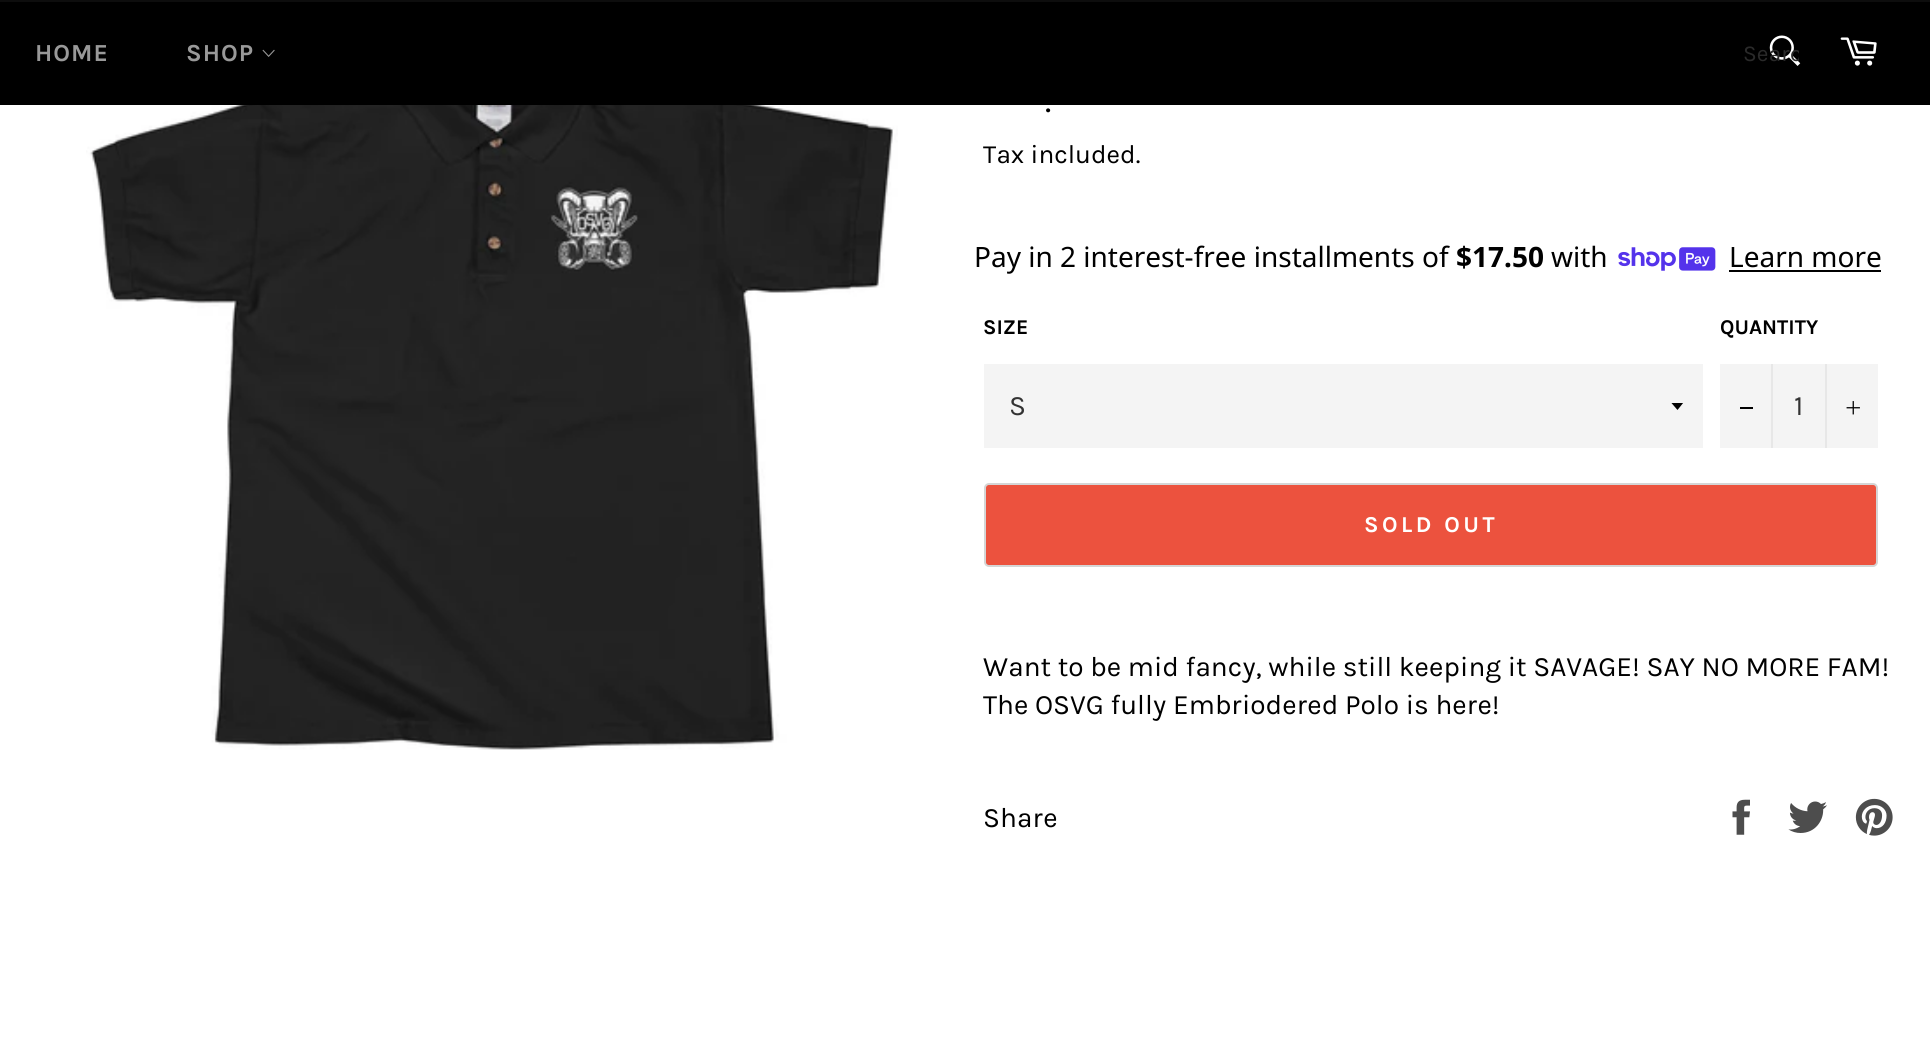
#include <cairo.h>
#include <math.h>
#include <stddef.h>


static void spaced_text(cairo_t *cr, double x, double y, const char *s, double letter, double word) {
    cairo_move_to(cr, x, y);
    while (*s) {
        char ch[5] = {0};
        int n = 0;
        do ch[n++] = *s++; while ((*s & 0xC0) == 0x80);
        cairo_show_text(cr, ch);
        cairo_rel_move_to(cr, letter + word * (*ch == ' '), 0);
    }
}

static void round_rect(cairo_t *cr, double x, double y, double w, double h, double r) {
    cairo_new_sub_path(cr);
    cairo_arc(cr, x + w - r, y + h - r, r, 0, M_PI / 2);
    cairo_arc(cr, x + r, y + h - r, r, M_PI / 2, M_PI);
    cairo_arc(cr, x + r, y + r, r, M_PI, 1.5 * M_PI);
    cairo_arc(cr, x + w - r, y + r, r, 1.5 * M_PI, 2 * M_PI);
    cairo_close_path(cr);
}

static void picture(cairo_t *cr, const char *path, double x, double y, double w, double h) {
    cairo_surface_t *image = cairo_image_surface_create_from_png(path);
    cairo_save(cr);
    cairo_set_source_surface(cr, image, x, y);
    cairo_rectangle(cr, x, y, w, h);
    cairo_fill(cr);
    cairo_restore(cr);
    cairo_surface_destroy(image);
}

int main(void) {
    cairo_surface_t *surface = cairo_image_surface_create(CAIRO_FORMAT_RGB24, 1930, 1057);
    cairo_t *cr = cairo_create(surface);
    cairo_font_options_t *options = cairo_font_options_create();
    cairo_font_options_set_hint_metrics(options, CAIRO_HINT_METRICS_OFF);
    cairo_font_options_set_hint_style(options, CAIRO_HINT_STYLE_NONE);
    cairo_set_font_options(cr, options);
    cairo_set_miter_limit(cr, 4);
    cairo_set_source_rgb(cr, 1, 1, 1);
    cairo_paint(cr);
    cairo_set_source_rgb(cr, 0, 0, 0);
    cairo_rectangle(cr, 0, 2, 1930, 103);
    cairo_fill(cr);
    cairo_set_source_rgb(cr, 0.051, 0.051, 0.051);
    cairo_rectangle(cr, 0, 0, 1930, 2);
    cairo_fill(cr);
    cairo_select_font_face(cr, "Karla", CAIRO_FONT_SLANT_NORMAL, CAIRO_FONT_WEIGHT_BOLD);
    cairo_set_font_size(cr, 24.5);
    cairo_set_source_rgb(cr, 0.6, 0.6, 0.6);
    spaced_text(cr, 35, 61, "HOME", 1, 0);
    spaced_text(cr, 186, 61, "SHOP", 1, 0);
    picture(cr, "img1.png", 262, 49, 13, 8);
    picture(cr, "img2.png", 1769, 35, 32, 31);
    cairo_save(cr);
    cairo_rectangle(cr, 1743, 40, 56, 27);
    cairo_clip(cr);
    cairo_select_font_face(cr, "Karla", CAIRO_FONT_SLANT_NORMAL, CAIRO_FONT_WEIGHT_NORMAL);
    cairo_set_font_size(cr, 22.75);
    cairo_set_source_rgb(cr, 0.165, 0.165, 0.165);
    cairo_move_to(cr, 1743, 61);
    cairo_show_text(cr, "Searc");
    cairo_restore(cr);
    picture(cr, "img3.png", 1840, 37, 37, 29);
    picture(cr, "img4.png", 86, 105, 812, 645);
    cairo_select_font_face(cr, "Karla", CAIRO_FONT_SLANT_NORMAL, CAIRO_FONT_WEIGHT_NORMAL);
    cairo_set_font_size(cr, 35);
    cairo_set_source_rgb(cr, 0, 0, 0);
    cairo_move_to(cr, 1045, 112);
    cairo_show_text(cr, ".");
    cairo_set_font_size(cr, 26.25);
    cairo_move_to(cr, 983, 163);
    cairo_show_text(cr, "Tax included.");
    cairo_select_font_face(cr, "Noto Sans", CAIRO_FONT_SLANT_NORMAL, CAIRO_FONT_WEIGHT_NORMAL);
    cairo_set_font_size(cr, 28);
    cairo_move_to(cr, 974, 267);
    cairo_show_text(cr, "Pay in 2 interest-free installments of");
    cairo_select_font_face(cr, "Noto Sans", CAIRO_FONT_SLANT_NORMAL, CAIRO_FONT_WEIGHT_BOLD);
    cairo_move_to(cr, 1456, 267);
    cairo_show_text(cr, "$17.50");
    cairo_select_font_face(cr, "Noto Sans", CAIRO_FONT_SLANT_NORMAL, CAIRO_FONT_WEIGHT_NORMAL);
    cairo_move_to(cr, 1551, 267);
    cairo_show_text(cr, "with");
    picture(cr, "img5.png", 1618, 247, 98, 24);
    cairo_move_to(cr, 1729, 267);
    cairo_show_text(cr, "Learn more");
    cairo_rectangle(cr, 1729, 270, 152, 2);
    cairo_fill(cr);
    cairo_select_font_face(cr, "Karla", CAIRO_FONT_SLANT_NORMAL, CAIRO_FONT_WEIGHT_BOLD);
    cairo_set_font_size(cr, 21);
    cairo_move_to(cr, 983, 334);
    cairo_show_text(cr, "SIZE");
    cairo_set_source_rgb(cr, 0.957, 0.957, 0.957);
    cairo_rectangle(cr, 984, 364, 719, 84);
    cairo_fill(cr);
    cairo_save(cr);
    cairo_rectangle(cr, 1671, 403, 14, 8);
    cairo_clip(cr);
    cairo_set_source_rgb(cr, 0, 0, 0);
    cairo_new_path(cr);
    cairo_move_to(cr, 1671, 402.5);
    cairo_line_to(cr, 1677.5, 410);
    cairo_line_to(cr, 1683.5, 402.5);
    cairo_close_path(cr);
    cairo_fill(cr);
    cairo_restore(cr);
    cairo_select_font_face(cr, "Karla", CAIRO_FONT_SLANT_NORMAL, CAIRO_FONT_WEIGHT_NORMAL);
    cairo_set_font_size(cr, 28);
    cairo_set_source_rgb(cr, 0.2, 0.2, 0.2);
    cairo_move_to(cr, 1009, 415);
    cairo_show_text(cr, "S");
    cairo_select_font_face(cr, "Karla", CAIRO_FONT_SLANT_NORMAL, CAIRO_FONT_WEIGHT_BOLD);
    cairo_set_font_size(cr, 21);
    cairo_set_source_rgb(cr, 0, 0, 0);
    cairo_move_to(cr, 1720, 334);
    cairo_show_text(cr, "QUANTITY");
    cairo_set_source_rgb(cr, 0.957, 0.957, 0.957);
    cairo_rectangle(cr, 1720, 364, 158, 84);
    cairo_fill(cr);
    cairo_set_source_rgb(cr, 0.906, 0.906, 0.906);
    cairo_rectangle(cr, 1771, 364, 2, 84);
    cairo_fill(cr);
    cairo_set_source_rgb(cr, 0, 0, 0);
    cairo_rectangle(cr, 1740, 407, 13, 2);
    cairo_fill(cr);
    cairo_select_font_face(cr, "Karla", CAIRO_FONT_SLANT_NORMAL, CAIRO_FONT_WEIGHT_NORMAL);
    cairo_set_font_size(cr, 28);
    cairo_set_source_rgb(cr, 0.2, 0.2, 0.2);
    cairo_move_to(cr, 1794, 415);
    cairo_show_text(cr, "1");
    cairo_set_source_rgb(cr, 0.906, 0.906, 0.906);
    cairo_rectangle(cr, 1825, 364, 2, 84);
    cairo_fill(cr);
    picture(cr, "img6.png", 1846, 401, 14, 14);
    cairo_set_source_rgb(cr, 0.925, 0.322, 0.243);
    round_rect(cr, 985, 484, 892, 82, 4);
    cairo_fill_preserve(cr);
    cairo_set_source_rgb(cr, 0.835, 0.835, 0.835);
    cairo_stroke(cr);
    cairo_select_font_face(cr, "Karla", CAIRO_FONT_SLANT_NORMAL, CAIRO_FONT_WEIGHT_BOLD);
    cairo_set_font_size(cr, 22.75);
    cairo_set_source_rgb(cr, 1, 1, 1);
    spaced_text(cr, 1364, 532, "SOLD OUT", 3.5, 0);
    cairo_select_font_face(cr, "Karla", CAIRO_FONT_SLANT_NORMAL, CAIRO_FONT_WEIGHT_NORMAL);
    cairo_set_font_size(cr, 28);
    cairo_set_source_rgb(cr, 0, 0, 0);
    cairo_move_to(cr, 983, 676);
    cairo_show_text(cr, "Want to be mid fancy, while still keeping it SAVAGE! SAY NO MORE FAM!");
    cairo_move_to(cr, 983, 714);
    cairo_show_text(cr, "The OSVG fully Embriodered Polo is here!");
    cairo_move_to(cr, 983, 827);
    cairo_show_text(cr, "Share");
    picture(cr, "img7.png", 1732, 799, 18, 36);
    picture(cr, "img8.png", 1788, 801, 39, 32);
    picture(cr, "img9.png", 1855, 798, 38, 38);
    cairo_surface_write_to_png(surface, "page.png");
    cairo_font_options_destroy(options);
    cairo_destroy(cr);
    cairo_surface_destroy(surface);
    return 0;
}
